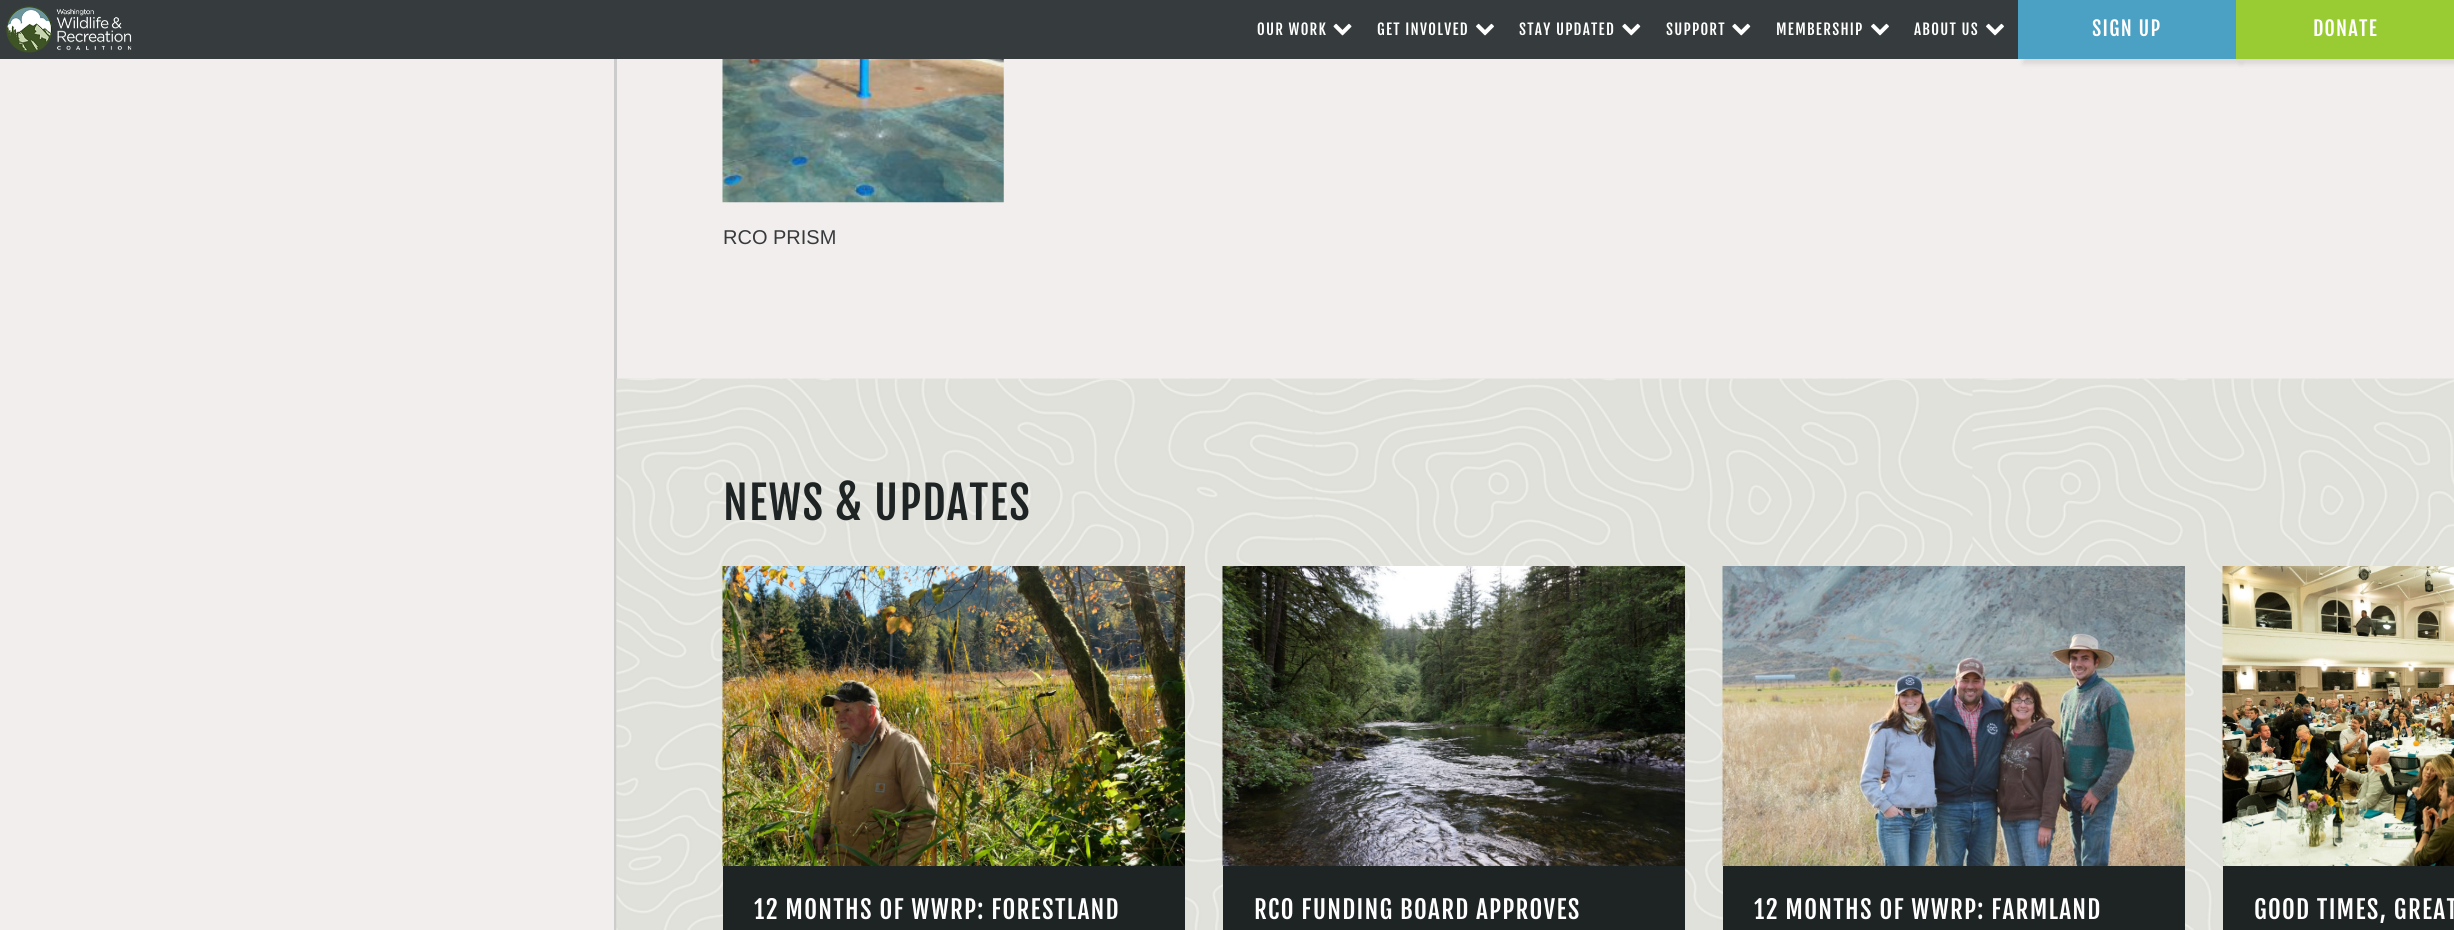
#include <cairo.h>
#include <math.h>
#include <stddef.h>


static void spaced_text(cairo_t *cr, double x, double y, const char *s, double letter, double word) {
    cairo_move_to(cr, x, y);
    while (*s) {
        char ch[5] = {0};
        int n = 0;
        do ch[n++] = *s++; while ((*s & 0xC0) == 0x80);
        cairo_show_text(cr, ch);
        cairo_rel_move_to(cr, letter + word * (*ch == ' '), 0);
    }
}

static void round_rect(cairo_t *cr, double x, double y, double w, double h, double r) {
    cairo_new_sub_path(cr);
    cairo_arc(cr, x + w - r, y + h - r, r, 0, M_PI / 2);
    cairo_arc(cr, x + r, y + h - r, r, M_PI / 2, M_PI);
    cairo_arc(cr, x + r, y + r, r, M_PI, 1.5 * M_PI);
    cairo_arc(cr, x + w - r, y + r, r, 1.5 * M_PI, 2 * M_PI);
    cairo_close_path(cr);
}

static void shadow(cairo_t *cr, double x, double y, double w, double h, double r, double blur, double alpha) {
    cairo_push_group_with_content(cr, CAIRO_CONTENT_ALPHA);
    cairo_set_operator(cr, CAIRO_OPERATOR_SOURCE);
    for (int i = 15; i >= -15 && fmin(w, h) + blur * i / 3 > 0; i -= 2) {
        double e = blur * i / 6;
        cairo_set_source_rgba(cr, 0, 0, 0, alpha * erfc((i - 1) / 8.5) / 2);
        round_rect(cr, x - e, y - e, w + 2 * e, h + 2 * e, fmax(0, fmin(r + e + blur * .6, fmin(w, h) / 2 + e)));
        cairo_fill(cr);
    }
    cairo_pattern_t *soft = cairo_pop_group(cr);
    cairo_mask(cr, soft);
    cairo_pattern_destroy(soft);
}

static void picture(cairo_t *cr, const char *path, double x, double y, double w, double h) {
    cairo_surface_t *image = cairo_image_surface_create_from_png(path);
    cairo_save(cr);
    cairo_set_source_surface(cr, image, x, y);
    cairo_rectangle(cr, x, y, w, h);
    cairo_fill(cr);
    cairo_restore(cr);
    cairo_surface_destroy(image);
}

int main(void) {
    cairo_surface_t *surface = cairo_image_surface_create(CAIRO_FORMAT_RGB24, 2454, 930);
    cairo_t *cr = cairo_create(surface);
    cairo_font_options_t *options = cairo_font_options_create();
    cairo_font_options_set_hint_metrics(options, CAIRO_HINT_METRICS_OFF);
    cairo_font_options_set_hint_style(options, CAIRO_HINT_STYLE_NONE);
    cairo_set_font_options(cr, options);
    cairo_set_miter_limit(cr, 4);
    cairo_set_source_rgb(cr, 0.949, 0.933, 0.929);
    cairo_paint(cr);
    cairo_set_source_rgb(cr, 0, 0, 0);
    shadow(cr, 2023, 5, 218, 59, 0, 2.5, 0.1);
    cairo_set_source_rgb(cr, 0.212, 0.235, 0.239);
    cairo_rectangle(cr, 0, 0, 2018, 59);
    cairo_fill(cr);
    picture(cr, "img1.png", 6, 6, 126, 47);
    cairo_select_font_face(cr, "Fjalla One", CAIRO_FONT_SLANT_NORMAL, CAIRO_FONT_WEIGHT_NORMAL);
    cairo_set_font_size(cr, 15);
    cairo_set_source_rgb(cr, 1, 1, 1);
    spaced_text(cr, 1257, 35, "OUR WORK", 1.25, 0);
    picture(cr, "img2.png", 1333, 23, 19, 13);
    spaced_text(cr, 1377, 35, "GET INVOLVED", 1.25, 0);
    picture(cr, "img3.png", 1476, 23, 18, 13);
    spaced_text(cr, 1519, 35, "STAY UPDATED", 1.25, 0);
    picture(cr, "img4.png", 1622, 23, 19, 13);
    spaced_text(cr, 1666, 35, "SUPPORT", 1.25, 0);
    picture(cr, "img4.png", 1732, 23, 19, 13);
    spaced_text(cr, 1776, 35, "MEMBERSHIP", 1.25, 0);
    picture(cr, "img3.png", 1871, 23, 18, 13);
    spaced_text(cr, 1914, 35, "ABOUT US", 1.25, 0);
    picture(cr, "img3.png", 1986, 23, 18, 13);
    cairo_set_source_rgb(cr, 0.294, 0.631, 0.765);
    cairo_rectangle(cr, 2018, 0, 218, 59);
    cairo_fill(cr);
    cairo_set_font_size(cr, 20);
    cairo_set_source_rgb(cr, 1, 1, 1);
    spaced_text(cr, 2092, 36, "SIGN UP", 1.25, 0);
    cairo_set_source_rgb(cr, 0, 0, 0);
    shadow(cr, 2241, 5, 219, 59, 0, 2.5, 0.1);
    cairo_set_source_rgb(cr, 0.6, 0.8, 0.2);
    cairo_rectangle(cr, 2236, 0, 218, 59);
    cairo_fill(cr);
    cairo_set_source_rgb(cr, 1, 1, 1);
    spaced_text(cr, 2313, 36, "DONATE", 1.25, 0);
    cairo_set_source_rgb(cr, 0.8, 0.8, 0.8);
    cairo_rectangle(cr, 614, 59, 3, 871);
    cairo_fill(cr);
    picture(cr, "img5.png", 722, 59, 282, 144);
    cairo_select_font_face(cr, "Arimo", CAIRO_FONT_SLANT_NORMAL, CAIRO_FONT_WEIGHT_NORMAL);
    cairo_set_source_rgb(cr, 0.216, 0.227, 0.235);
    cairo_move_to(cr, 723, 244);
    cairo_show_text(cr, "RCO PRISM");
    picture(cr, "img6.png", 616, 378, 1838, 552);
    cairo_select_font_face(cr, "Fjalla One", CAIRO_FONT_SLANT_NORMAL, CAIRO_FONT_WEIGHT_NORMAL);
    cairo_set_font_size(cr, 45);
    cairo_set_source_rgb(cr, 0.118, 0.137, 0.141);
    spaced_text(cr, 723, 520, "NEWS & UPDATES", 1.25, 0);
    cairo_rectangle(cr, 723, 866, 462, 64);
    cairo_fill(cr);
    picture(cr, "img7.png", 722, 566, 463, 300);
    cairo_set_font_size(cr, 25);
    cairo_set_source_rgb(cr, 1, 1, 1);
    spaced_text(cr, 754, 919, "12 MONTHS OF WWRP: FORESTLAND", 1.25, 0);
    cairo_set_source_rgb(cr, 0.118, 0.137, 0.141);
    cairo_rectangle(cr, 1223, 866, 462, 64);
    cairo_fill(cr);
    picture(cr, "img8.png", 1222, 566, 463, 300);
    cairo_set_source_rgb(cr, 1, 1, 1);
    spaced_text(cr, 1254, 919, "RCO FUNDING BOARD APPROVES", 1.25, 0);
    cairo_set_source_rgb(cr, 0.118, 0.137, 0.141);
    cairo_rectangle(cr, 1723, 866, 462, 64);
    cairo_fill(cr);
    picture(cr, "img9.png", 1722, 566, 463, 300);
    cairo_set_source_rgb(cr, 1, 1, 1);
    spaced_text(cr, 1754, 919, "12 MONTHS OF WWRP: FARMLAND", 1.25, 0);
    cairo_set_source_rgb(cr, 0.118, 0.137, 0.141);
    cairo_rectangle(cr, 2223, 866, 231, 64);
    cairo_fill(cr);
    picture(cr, "img10.png", 2222, 566, 232, 300);
    cairo_set_source_rgb(cr, 1, 1, 1);
    spaced_text(cr, 2254, 919, "GOOD TIMES, GREAT", 1.25, 0);
    cairo_surface_write_to_png(surface, "page.png");
    cairo_font_options_destroy(options);
    cairo_destroy(cr);
    cairo_surface_destroy(surface);
    return 0;
}
